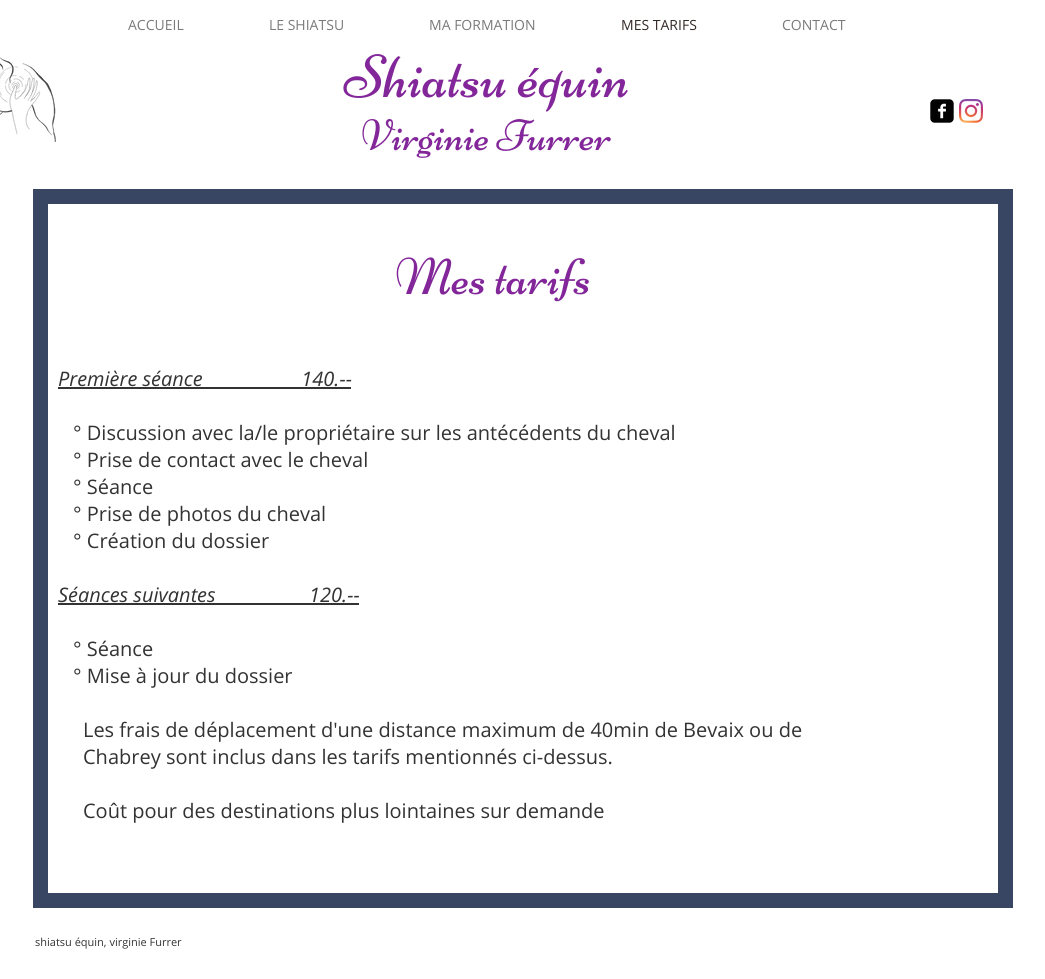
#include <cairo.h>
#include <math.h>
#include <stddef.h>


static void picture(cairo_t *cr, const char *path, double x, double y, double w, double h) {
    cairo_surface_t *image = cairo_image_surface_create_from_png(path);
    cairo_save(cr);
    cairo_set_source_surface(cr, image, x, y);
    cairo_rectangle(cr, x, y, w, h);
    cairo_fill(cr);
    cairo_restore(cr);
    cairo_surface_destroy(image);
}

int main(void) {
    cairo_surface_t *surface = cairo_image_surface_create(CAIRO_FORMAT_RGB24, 1045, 979);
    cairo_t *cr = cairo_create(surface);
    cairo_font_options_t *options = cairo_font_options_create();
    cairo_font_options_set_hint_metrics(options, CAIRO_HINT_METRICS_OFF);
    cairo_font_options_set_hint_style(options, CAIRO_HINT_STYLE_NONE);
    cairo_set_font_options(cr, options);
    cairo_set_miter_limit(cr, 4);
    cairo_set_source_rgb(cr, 1, 1, 1);
    cairo_paint(cr);
    cairo_select_font_face(cr, "Open Sans", CAIRO_FONT_SLANT_NORMAL, CAIRO_FONT_WEIGHT_NORMAL);
    cairo_set_font_size(cr, 14);
    cairo_set_source_rgb(cr, 0.478, 0.478, 0.478);
    cairo_move_to(cr, 128, 30);
    cairo_show_text(cr, "ACCUEIL");
    cairo_move_to(cr, 269, 30);
    cairo_show_text(cr, "LE SHIATSU");
    cairo_move_to(cr, 429, 30);
    cairo_show_text(cr, "MA FORMATION");
    cairo_set_source_rgb(cr, 0.2, 0.161, 0.149);
    cairo_move_to(cr, 621, 30);
    cairo_show_text(cr, "MES TARIFS");
    cairo_set_source_rgb(cr, 0.478, 0.478, 0.478);
    cairo_move_to(cr, 782, 30);
    cairo_show_text(cr, "CONTACT");
    picture(cr, "img1.png", 0, 57, 56, 85);
    picture(cr, "img2.png", 343, 54, 285, 58);
    picture(cr, "img3.png", 362, 119, 249, 39);
    picture(cr, "img4.png", 930, 99, 24, 24);
    picture(cr, "img5.png", 959, 99, 24, 24);
    cairo_new_path(cr);
    cairo_move_to(cr, 40.5, 196.5);
    cairo_line_to(cr, 1005.5, 196.5);
    cairo_line_to(cr, 1005.5, 900.5);
    cairo_line_to(cr, 40.5, 900.5);
    cairo_close_path(cr);
    cairo_set_source_rgb(cr, 0.224, 0.275, 0.388);
    cairo_set_line_width(cr, 15);
    cairo_stroke(cr);
    picture(cr, "img6.png", 396, 257, 193, 45);
    cairo_select_font_face(cr, "Open Sans", CAIRO_FONT_SLANT_ITALIC, CAIRO_FONT_WEIGHT_NORMAL);
    cairo_set_font_size(cr, 20);
    cairo_set_source_rgb(cr, 0.2, 0.2, 0.2);
    cairo_move_to(cr, 58, 386);
    cairo_show_text(cr, "Première séance                   140.--");
    cairo_rectangle(cr, 58, 387, 293, 2);
    cairo_fill(cr);
    cairo_select_font_face(cr, "Open Sans", CAIRO_FONT_SLANT_NORMAL, CAIRO_FONT_WEIGHT_NORMAL);
    cairo_move_to(cr, 73, 440);
    cairo_show_text(cr, "° Discussion avec la/le propriétaire sur les antécédents du cheval");
    cairo_move_to(cr, 73, 467);
    cairo_show_text(cr, "° Prise de contact avec le cheval");
    cairo_move_to(cr, 73, 494);
    cairo_show_text(cr, "° Séance");
    cairo_move_to(cr, 73, 521);
    cairo_show_text(cr, "° Prise de photos du cheval");
    cairo_move_to(cr, 73, 548);
    cairo_show_text(cr, "° Création du dossier");
    cairo_select_font_face(cr, "Open Sans", CAIRO_FONT_SLANT_ITALIC, CAIRO_FONT_WEIGHT_NORMAL);
    cairo_move_to(cr, 58, 602);
    cairo_show_text(cr, "Séances suivantes                  120.--");
    cairo_rectangle(cr, 58, 603, 301, 2);
    cairo_fill(cr);
    cairo_select_font_face(cr, "Open Sans", CAIRO_FONT_SLANT_NORMAL, CAIRO_FONT_WEIGHT_NORMAL);
    cairo_move_to(cr, 73, 656);
    cairo_show_text(cr, "° Séance");
    cairo_move_to(cr, 73, 683);
    cairo_show_text(cr, "° Mise à jour du dossier");
    cairo_move_to(cr, 83, 737);
    cairo_show_text(cr, "Les frais de déplacement d'une distance maximum de 40min de Bevaix ou de");
    cairo_move_to(cr, 83, 764);
    cairo_show_text(cr, "Chabrey sont inclus dans les tarifs mentionnés ci-dessus.");
    cairo_move_to(cr, 83, 818);
    cairo_show_text(cr, "Coût pour des destinations plus lointaines sur demande");
    cairo_set_font_size(cr, 11);
    cairo_move_to(cr, 35, 946);
    cairo_show_text(cr, "shiatsu équin, virginie Furrer");
    cairo_surface_write_to_png(surface, "page.png");
    cairo_font_options_destroy(options);
    cairo_destroy(cr);
    cairo_surface_destroy(surface);
    return 0;
}
